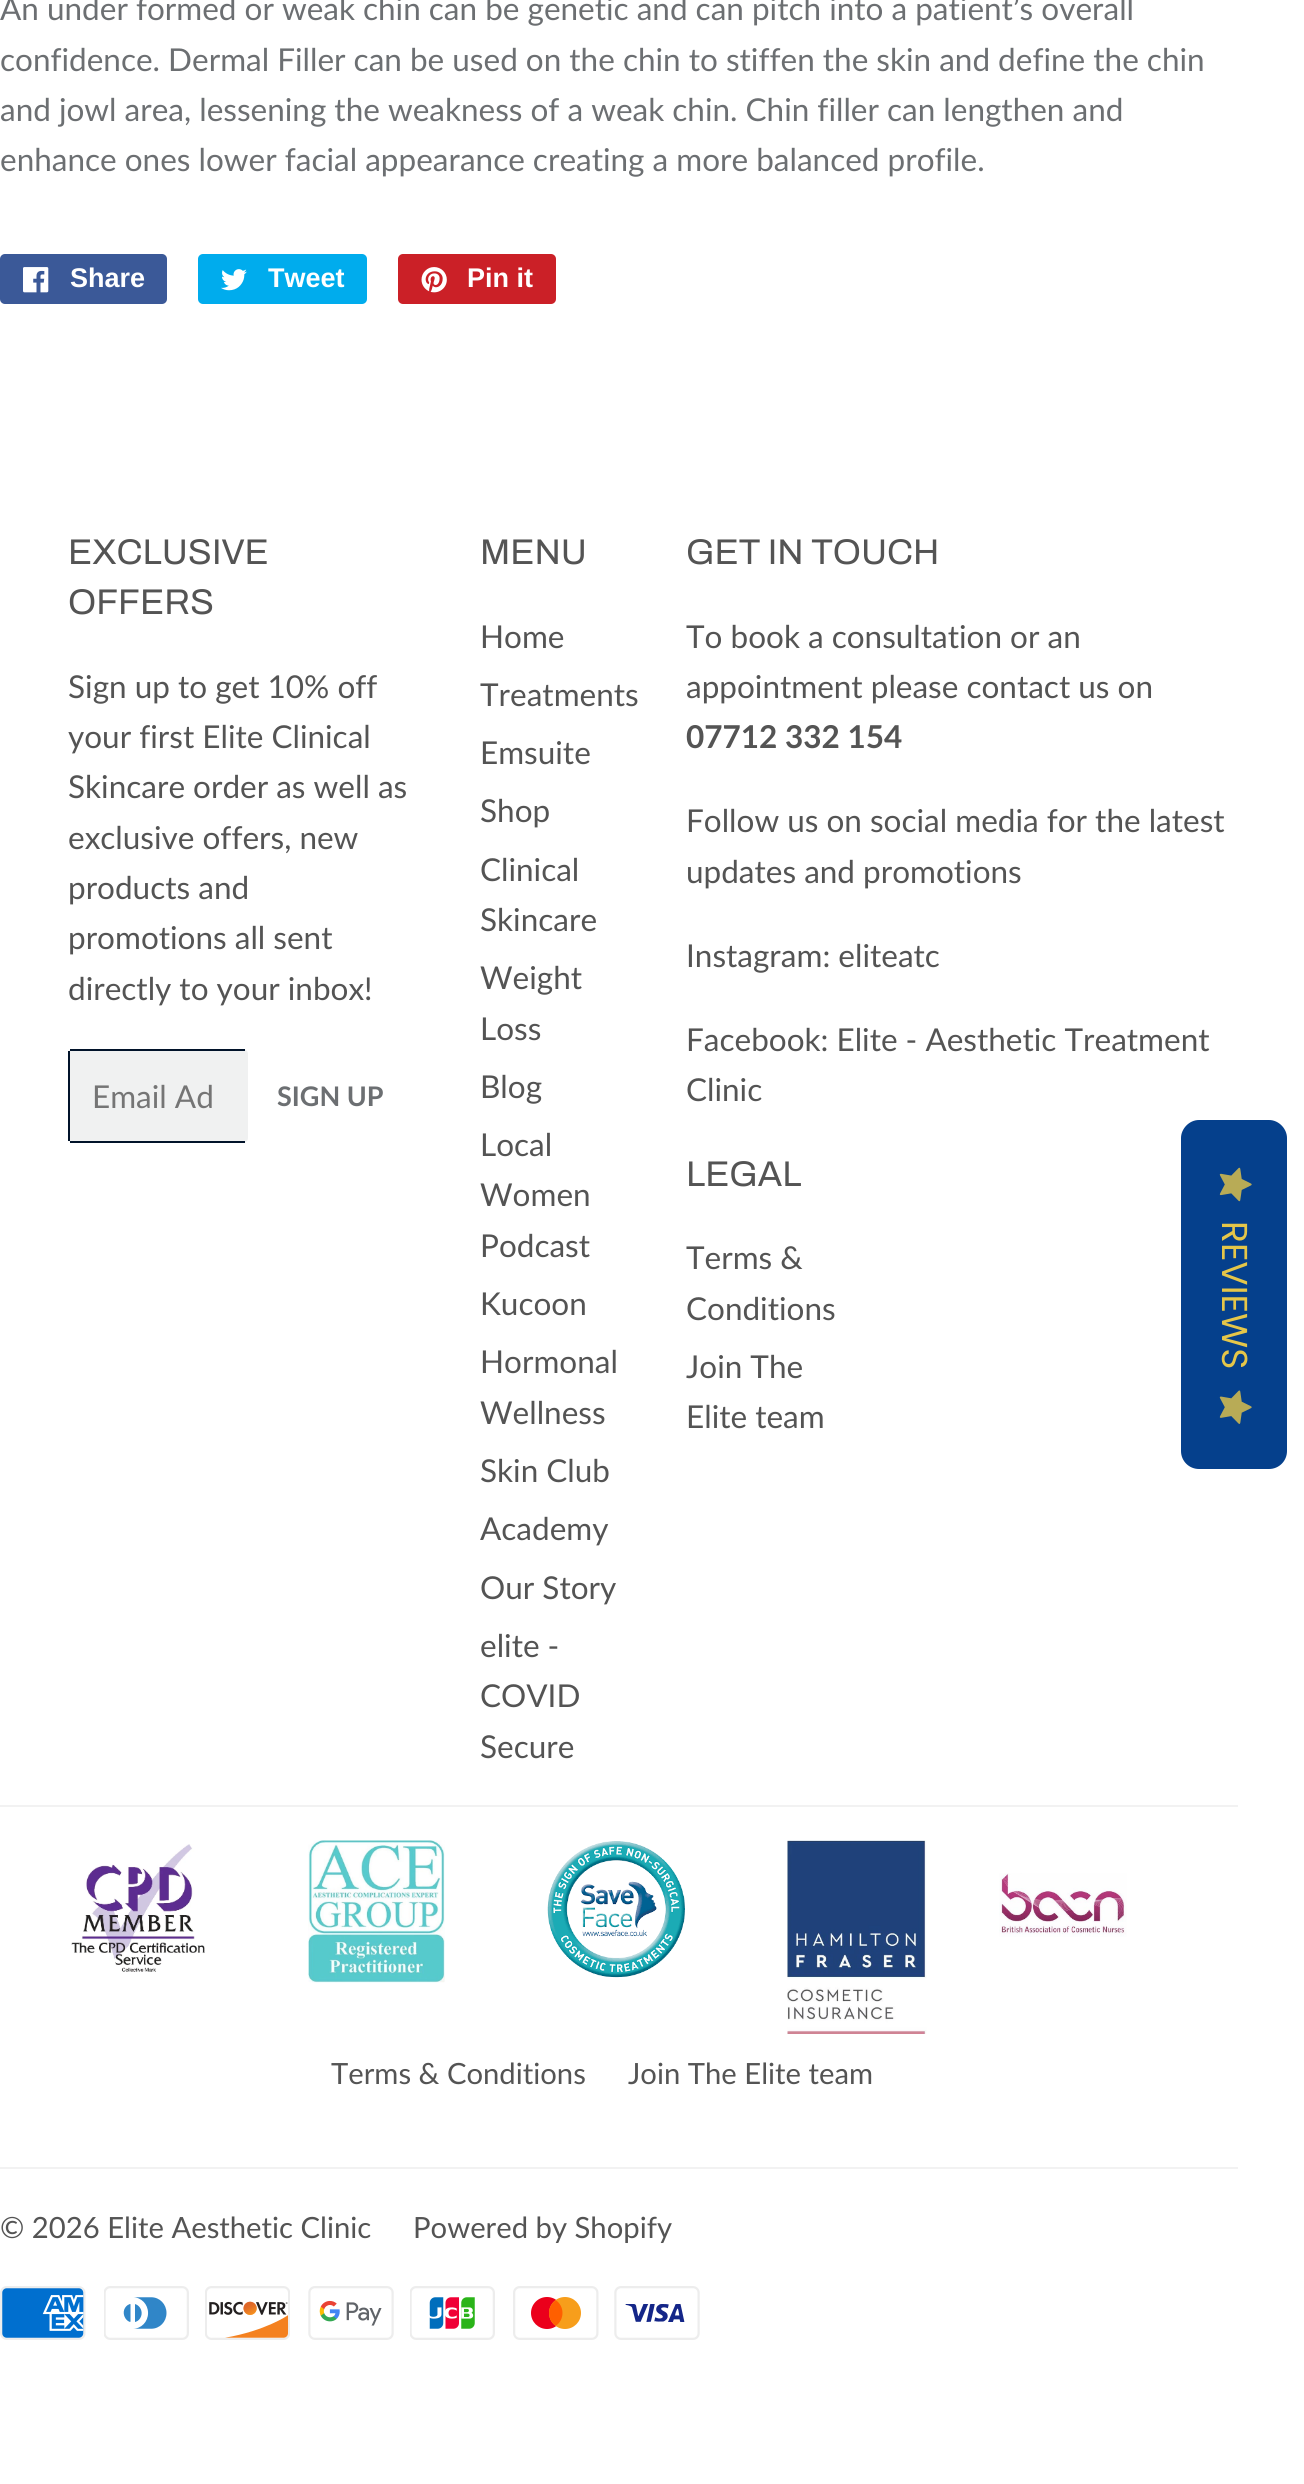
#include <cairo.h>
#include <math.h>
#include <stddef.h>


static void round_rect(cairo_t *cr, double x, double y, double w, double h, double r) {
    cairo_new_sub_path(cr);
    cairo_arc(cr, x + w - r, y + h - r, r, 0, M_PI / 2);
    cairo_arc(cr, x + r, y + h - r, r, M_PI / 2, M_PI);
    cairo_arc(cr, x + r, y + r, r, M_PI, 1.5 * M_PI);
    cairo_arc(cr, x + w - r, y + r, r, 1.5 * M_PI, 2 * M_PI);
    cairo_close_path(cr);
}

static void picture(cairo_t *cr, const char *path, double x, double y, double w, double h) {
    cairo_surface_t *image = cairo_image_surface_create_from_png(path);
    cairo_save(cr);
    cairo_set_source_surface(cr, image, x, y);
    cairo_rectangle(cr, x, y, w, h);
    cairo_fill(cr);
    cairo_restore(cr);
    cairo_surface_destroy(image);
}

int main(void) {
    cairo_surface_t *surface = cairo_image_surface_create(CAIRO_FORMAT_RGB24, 1304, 2484);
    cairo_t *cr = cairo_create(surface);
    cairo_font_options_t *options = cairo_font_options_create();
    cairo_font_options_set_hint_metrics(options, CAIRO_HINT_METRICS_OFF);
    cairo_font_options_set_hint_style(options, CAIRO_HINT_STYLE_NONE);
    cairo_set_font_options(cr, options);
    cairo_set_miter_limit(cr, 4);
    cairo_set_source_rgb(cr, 1, 1, 1);
    cairo_paint(cr);
    cairo_select_font_face(cr, "Lato", CAIRO_FONT_SLANT_NORMAL, CAIRO_FONT_WEIGHT_NORMAL);
    cairo_set_font_size(cr, 31.5);
    cairo_set_source_rgb(cr, 0.424, 0.435, 0.447);
    cairo_move_to(cr, 0, 20);
    cairo_show_text(cr, "An under formed or weak chin can be genetic and can pitch into a patient’s overall");
    cairo_move_to(cr, 0, 71);
    cairo_show_text(cr, "confidence. Dermal Filler can be used on the chin to stiffen the skin and define the chin");
    cairo_move_to(cr, 0, 121);
    cairo_show_text(cr, "and jowl area, lessening the weakness of a weak chin. Chin filler can lengthen and");
    cairo_move_to(cr, 0, 171);
    cairo_show_text(cr, "enhance ones lower facial appearance creating a more balanced profile.");
    cairo_set_source_rgb(cr, 0.231, 0.349, 0.596);
    round_rect(cr, 0, 254, 167, 50, 5);
    cairo_fill(cr);
    picture(cr, "img1.png", 23, 267, 26, 26);
    cairo_select_font_face(cr, "Liberation Sans", CAIRO_FONT_SLANT_NORMAL, CAIRO_FONT_WEIGHT_BOLD);
    cairo_set_font_size(cr, 27);
    cairo_set_source_rgb(cr, 1, 1, 1);
    cairo_move_to(cr, 70, 287);
    cairo_show_text(cr, "Share");
    cairo_set_source_rgb(cr, 0, 0.675, 0.929);
    round_rect(cr, 198, 254, 169, 50, 5);
    cairo_fill(cr);
    picture(cr, "img2.png", 221, 269, 26, 22);
    cairo_set_source_rgb(cr, 1, 1, 1);
    cairo_move_to(cr, 268, 287);
    cairo_show_text(cr, "Tweet");
    cairo_set_source_rgb(cr, 0.796, 0.125, 0.153);
    round_rect(cr, 398, 254, 158, 50, 5);
    cairo_fill(cr);
    picture(cr, "img3.png", 421, 267, 26, 26);
    cairo_set_source_rgb(cr, 1, 1, 1);
    cairo_move_to(cr, 467, 287);
    cairo_show_text(cr, "Pin it");
    cairo_select_font_face(cr, "Archivo", CAIRO_FONT_SLANT_NORMAL, CAIRO_FONT_WEIGHT_NORMAL);
    cairo_set_font_size(cr, 35.75);
    cairo_set_source_rgb(cr, 0.329, 0.329, 0.329);
    cairo_move_to(cr, 68, 564);
    cairo_show_text(cr, "EXCLUSIVE");
    cairo_move_to(cr, 68, 614);
    cairo_show_text(cr, "OFFERS");
    cairo_select_font_face(cr, "Lato", CAIRO_FONT_SLANT_NORMAL, CAIRO_FONT_WEIGHT_NORMAL);
    cairo_set_font_size(cr, 31.5);
    cairo_move_to(cr, 68, 698);
    cairo_show_text(cr, "Sign up to get 10% off");
    cairo_move_to(cr, 68, 748);
    cairo_show_text(cr, "your first Elite Clinical");
    cairo_move_to(cr, 68, 798);
    cairo_show_text(cr, "Skincare order as well as");
    cairo_move_to(cr, 68, 849);
    cairo_show_text(cr, "exclusive offers, new");
    cairo_move_to(cr, 68, 899);
    cairo_show_text(cr, "products and");
    cairo_move_to(cr, 68, 949);
    cairo_show_text(cr, "promotions all sent");
    cairo_move_to(cr, 68, 1000);
    cairo_show_text(cr, "directly to your inbox!");
    cairo_set_source_rgb(cr, 0.941, 0.945, 0.945);
    round_rect(cr, 68, 1049, 180, 94, 5);
    cairo_fill(cr);
    cairo_set_source_rgb(cr, 0.004, 0.075, 0.165);
    cairo_rectangle(cr, 70, 1049, 175, 2);
    cairo_fill(cr);
    cairo_rectangle(cr, 70, 1141, 175, 2);
    cairo_fill(cr);
    cairo_rectangle(cr, 68, 1051, 2, 90);
    cairo_fill(cr);
    cairo_set_source_rgb(cr, 0.459, 0.459, 0.459);
    cairo_move_to(cr, 92, 1108);
    cairo_show_text(cr, "Email Ad");
    cairo_select_font_face(cr, "Lato", CAIRO_FONT_SLANT_NORMAL, CAIRO_FONT_WEIGHT_BOLD);
    cairo_set_font_size(cr, 27);
    cairo_set_source_rgb(cr, 0.424, 0.435, 0.447);
    cairo_move_to(cr, 277, 1106);
    cairo_show_text(cr, "SIGN UP");
    cairo_select_font_face(cr, "Archivo", CAIRO_FONT_SLANT_NORMAL, CAIRO_FONT_WEIGHT_NORMAL);
    cairo_set_font_size(cr, 35.75);
    cairo_set_source_rgb(cr, 0.329, 0.329, 0.329);
    cairo_move_to(cr, 480, 564);
    cairo_show_text(cr, "MENU");
    cairo_select_font_face(cr, "Lato", CAIRO_FONT_SLANT_NORMAL, CAIRO_FONT_WEIGHT_NORMAL);
    cairo_set_font_size(cr, 31.5);
    cairo_move_to(cr, 480, 648);
    cairo_show_text(cr, "Home");
    cairo_move_to(cr, 480, 706);
    cairo_show_text(cr, "Treatments");
    cairo_move_to(cr, 480, 764);
    cairo_show_text(cr, "Emsuite");
    cairo_move_to(cr, 480, 822);
    cairo_show_text(cr, "Shop");
    cairo_move_to(cr, 480, 881);
    cairo_show_text(cr, "Clinical");
    cairo_move_to(cr, 480, 931);
    cairo_show_text(cr, "Skincare");
    cairo_move_to(cr, 480, 989);
    cairo_show_text(cr, "Weight");
    cairo_move_to(cr, 480, 1040);
    cairo_show_text(cr, "Loss");
    cairo_move_to(cr, 480, 1098);
    cairo_show_text(cr, "Blog");
    cairo_move_to(cr, 480, 1156);
    cairo_show_text(cr, "Local");
    cairo_move_to(cr, 480, 1206);
    cairo_show_text(cr, "Women");
    cairo_move_to(cr, 480, 1257);
    cairo_show_text(cr, "Podcast");
    cairo_move_to(cr, 480, 1315);
    cairo_show_text(cr, "Kucoon");
    cairo_move_to(cr, 480, 1373);
    cairo_show_text(cr, "Hormonal");
    cairo_move_to(cr, 480, 1424);
    cairo_show_text(cr, "Wellness");
    cairo_move_to(cr, 480, 1482);
    cairo_show_text(cr, "Skin Club");
    cairo_move_to(cr, 480, 1540);
    cairo_show_text(cr, "Academy");
    cairo_move_to(cr, 480, 1599);
    cairo_show_text(cr, "Our Story");
    cairo_move_to(cr, 480, 1657);
    cairo_show_text(cr, "elite -");
    cairo_move_to(cr, 480, 1707);
    cairo_show_text(cr, "COVID");
    cairo_move_to(cr, 480, 1758);
    cairo_show_text(cr, "Secure");
    cairo_select_font_face(cr, "Archivo", CAIRO_FONT_SLANT_NORMAL, CAIRO_FONT_WEIGHT_NORMAL);
    cairo_set_font_size(cr, 35.75);
    cairo_move_to(cr, 686, 564);
    cairo_show_text(cr, "GET IN TOUCH");
    cairo_select_font_face(cr, "Lato", CAIRO_FONT_SLANT_NORMAL, CAIRO_FONT_WEIGHT_NORMAL);
    cairo_set_font_size(cr, 31.5);
    cairo_move_to(cr, 686, 648);
    cairo_show_text(cr, "To book a consultation or an");
    cairo_move_to(cr, 686, 698);
    cairo_show_text(cr, "appointment please contact us on");
    cairo_select_font_face(cr, "Lato", CAIRO_FONT_SLANT_NORMAL, CAIRO_FONT_WEIGHT_BOLD);
    cairo_move_to(cr, 686, 748);
    cairo_show_text(cr, "07712 332 154");
    cairo_select_font_face(cr, "Lato", CAIRO_FONT_SLANT_NORMAL, CAIRO_FONT_WEIGHT_NORMAL);
    cairo_move_to(cr, 686, 832);
    cairo_show_text(cr, "Follow us on social media for the latest");
    cairo_move_to(cr, 686, 883);
    cairo_show_text(cr, "updates and promotions");
    cairo_move_to(cr, 686, 967);
    cairo_show_text(cr, "Instagram: eliteatc");
    cairo_move_to(cr, 686, 1051);
    cairo_show_text(cr, "Facebook: Elite - Aesthetic Treatment");
    cairo_move_to(cr, 686, 1101);
    cairo_show_text(cr, "Clinic");
    cairo_select_font_face(cr, "Archivo", CAIRO_FONT_SLANT_NORMAL, CAIRO_FONT_WEIGHT_NORMAL);
    cairo_set_font_size(cr, 35.75);
    cairo_move_to(cr, 686, 1186);
    cairo_show_text(cr, "LEGAL");
    cairo_select_font_face(cr, "Lato", CAIRO_FONT_SLANT_NORMAL, CAIRO_FONT_WEIGHT_NORMAL);
    cairo_set_font_size(cr, 31.5);
    cairo_move_to(cr, 686, 1269);
    cairo_show_text(cr, "Terms &");
    cairo_move_to(cr, 686, 1320);
    cairo_show_text(cr, "Conditions");
    cairo_move_to(cr, 686, 1378);
    cairo_show_text(cr, "Join The");
    cairo_move_to(cr, 686, 1428);
    cairo_show_text(cr, "Elite team");
    cairo_set_source_rgb(cr, 0.949, 0.949, 0.949);
    cairo_rectangle(cr, 0, 1805, 1238, 2);
    cairo_fill(cr);
    picture(cr, "img4.png", 71, 1844, 134, 128);
    picture(cr, "img5.png", 308, 1840, 137, 143);
    picture(cr, "img6.png", 547, 1841, 138, 137);
    picture(cr, "img7.png", 787, 1840, 140, 194);
    picture(cr, "img8.png", 999, 1873, 128, 64);
    cairo_set_font_size(cr, 29.25);
    cairo_set_source_rgb(cr, 0.329, 0.329, 0.329);
    cairo_move_to(cr, 331, 2084);
    cairo_show_text(cr, "Terms & Conditions");
    cairo_move_to(cr, 628, 2084);
    cairo_show_text(cr, "Join The Elite team");
    cairo_set_source_rgb(cr, 0.949, 0.949, 0.949);
    cairo_rectangle(cr, 0, 2167, 1238, 2);
    cairo_fill(cr);
    cairo_set_source_rgb(cr, 0.329, 0.329, 0.329);
    cairo_move_to(cr, 0, 2238);
    cairo_show_text(cr, "© 2026 Elite Aesthetic Clinic");
    cairo_move_to(cr, 413, 2238);
    cairo_show_text(cr, "Powered by Shopify");
    picture(cr, "img9.png", 0, 2286, 86, 54);
    picture(cr, "img10.png", 104, 2286, 85, 54);
    picture(cr, "img11.png", 205, 2286, 85, 54);
    picture(cr, "img12.png", 308, 2286, 86, 54);
    picture(cr, "img13.png", 410, 2286, 85, 54);
    picture(cr, "img14.png", 513, 2286, 86, 54);
    picture(cr, "img15.png", 614, 2286, 86, 54);
    cairo_set_source_rgb(cr, 0.02, 0.251, 0.549);
    cairo_new_path(cr);
    cairo_move_to(cr, 1287, 1138);
    cairo_line_to(cr, 1287, 1451);
    cairo_curve_to(cr, 1287, 1461, 1279, 1469, 1269, 1469);
    cairo_line_to(cr, 1199, 1469);
    cairo_curve_to(cr, 1189, 1469, 1181, 1461, 1181, 1451);
    cairo_line_to(cr, 1181, 1138);
    cairo_curve_to(cr, 1181, 1129, 1189, 1120, 1199, 1120);
    cairo_line_to(cr, 1269, 1120);
    cairo_curve_to(cr, 1279, 1120, 1287, 1129, 1287, 1138);
    cairo_close_path(cr);
    cairo_fill(cr);
    picture(cr, "img16.png", 1219, 1167, 33, 35);
    cairo_select_font_face(cr, "Poppins", CAIRO_FONT_SLANT_NORMAL, CAIRO_FONT_WEIGHT_NORMAL);
    cairo_set_font_size(cr, 36);
    cairo_set_source_rgb(cr, 0.898, 0.776, 0.286);
    cairo_save(cr);
    cairo_translate(cr, 1222, 1221);
    cairo_rotate(cr, 90 * M_PI / 180);
    cairo_move_to(cr, 0, 0);
    cairo_show_text(cr, "REVIEWS");
    cairo_restore(cr);
    picture(cr, "img17.png", 1219, 1390, 33, 34);
    cairo_surface_write_to_png(surface, "page.png");
    cairo_font_options_destroy(options);
    cairo_destroy(cr);
    cairo_surface_destroy(surface);
    return 0;
}
